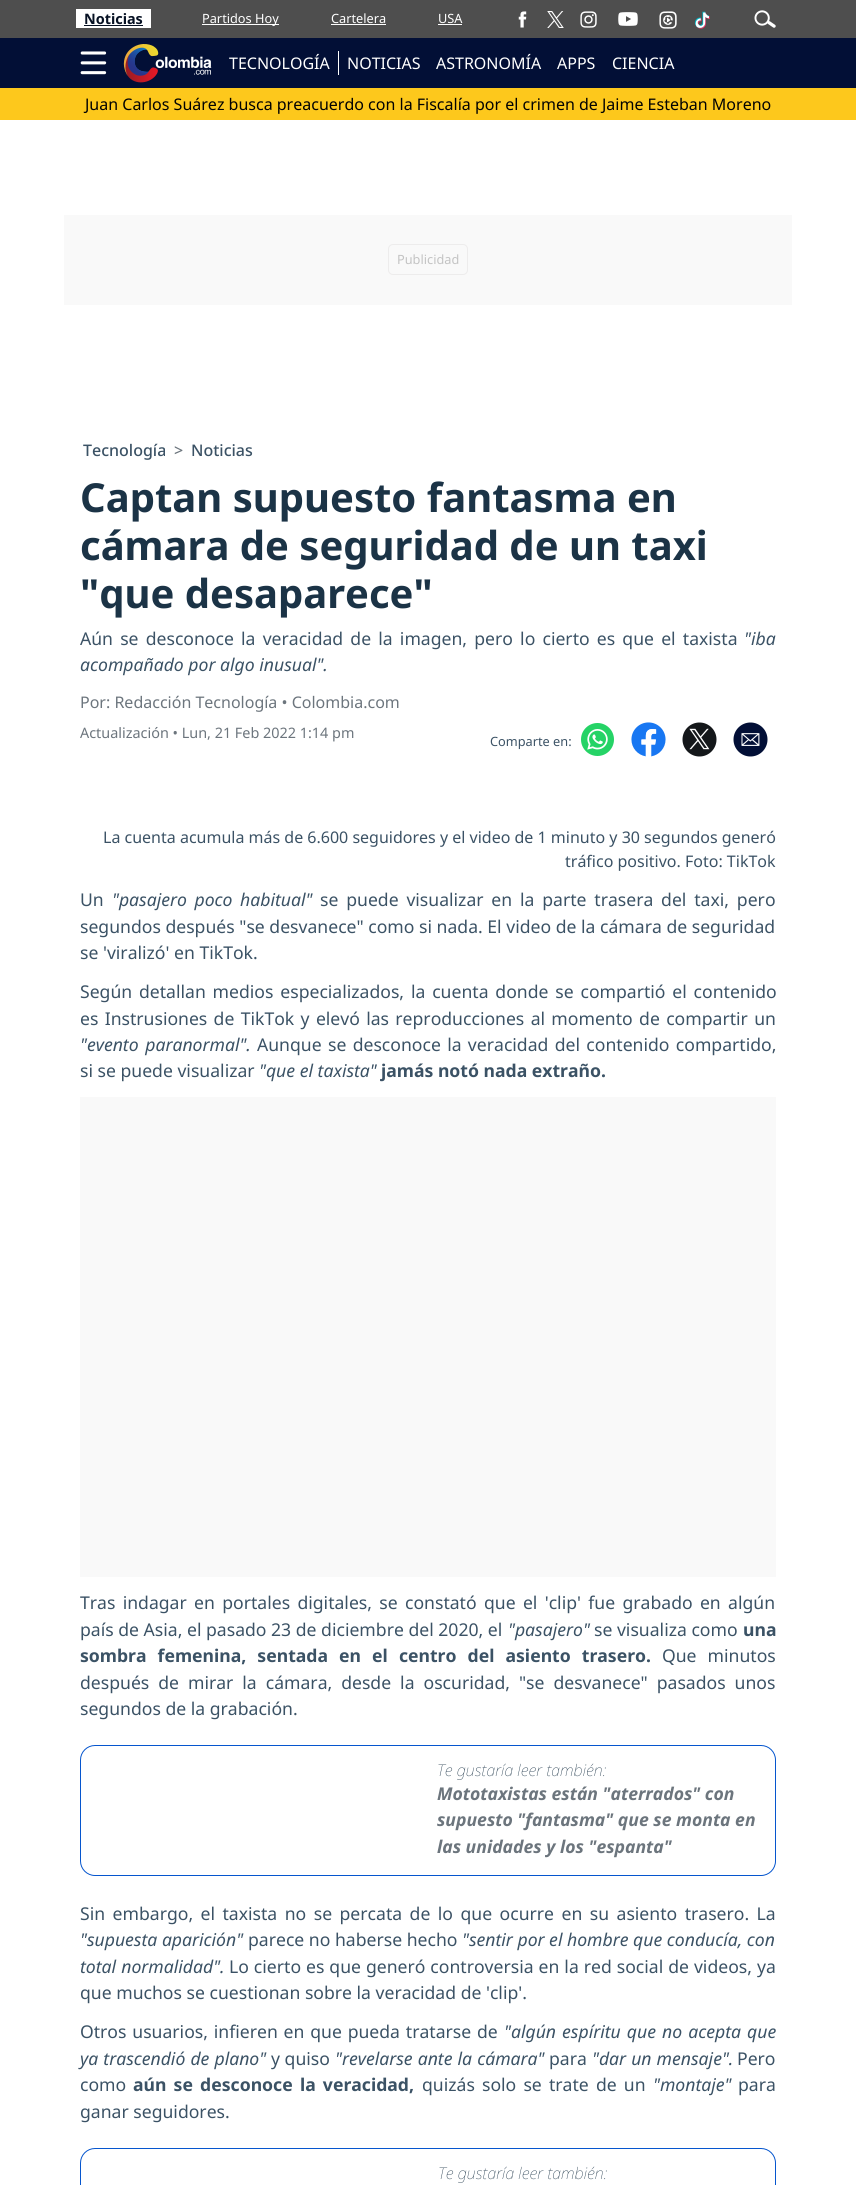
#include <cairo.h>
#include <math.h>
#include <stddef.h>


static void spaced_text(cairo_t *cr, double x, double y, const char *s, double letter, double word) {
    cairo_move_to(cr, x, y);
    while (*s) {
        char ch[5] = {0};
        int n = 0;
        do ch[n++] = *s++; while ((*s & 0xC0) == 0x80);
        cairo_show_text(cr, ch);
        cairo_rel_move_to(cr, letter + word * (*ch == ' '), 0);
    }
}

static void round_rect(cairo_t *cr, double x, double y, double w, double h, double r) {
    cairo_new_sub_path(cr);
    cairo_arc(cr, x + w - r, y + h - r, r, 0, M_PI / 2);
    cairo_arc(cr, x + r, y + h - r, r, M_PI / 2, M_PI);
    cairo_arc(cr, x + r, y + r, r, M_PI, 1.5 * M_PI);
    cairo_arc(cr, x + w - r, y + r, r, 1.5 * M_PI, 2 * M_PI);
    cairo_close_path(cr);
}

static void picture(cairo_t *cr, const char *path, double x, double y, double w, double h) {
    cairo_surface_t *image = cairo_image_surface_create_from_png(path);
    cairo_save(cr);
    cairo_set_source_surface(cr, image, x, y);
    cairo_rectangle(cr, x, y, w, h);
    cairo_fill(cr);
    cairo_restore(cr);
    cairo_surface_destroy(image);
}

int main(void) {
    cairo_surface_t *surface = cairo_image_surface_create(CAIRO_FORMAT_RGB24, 856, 2185);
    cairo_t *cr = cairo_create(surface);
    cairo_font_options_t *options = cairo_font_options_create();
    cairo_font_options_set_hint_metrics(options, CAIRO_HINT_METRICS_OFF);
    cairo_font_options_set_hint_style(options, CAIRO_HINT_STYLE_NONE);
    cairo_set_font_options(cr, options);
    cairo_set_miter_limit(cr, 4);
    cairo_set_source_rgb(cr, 1, 1, 1);
    cairo_paint(cr);
    cairo_set_source_rgb(cr, 0.306, 0.306, 0.306);
    cairo_rectangle(cr, 0, 0, 856, 38);
    cairo_fill(cr);
    cairo_set_source_rgb(cr, 1, 1, 1);
    cairo_rectangle(cr, 76, 9, 75, 19);
    cairo_fill(cr);
    cairo_select_font_face(cr, "Noto Sans", CAIRO_FONT_SLANT_NORMAL, CAIRO_FONT_WEIGHT_BOLD);
    cairo_set_font_size(cr, 14.4);
    cairo_set_source_rgb(cr, 0.031, 0.071, 0.141);
    cairo_move_to(cr, 84, 24);
    cairo_show_text(cr, "Noticias");
    cairo_rectangle(cr, 84, 25, 59, 1);
    cairo_fill(cr);
    cairo_set_source_rgb(cr, 1, 1, 1);
    cairo_rectangle(cr, 202, 24, 77, 1);
    cairo_fill(cr);
    cairo_select_font_face(cr, "Noto Sans", CAIRO_FONT_SLANT_NORMAL, CAIRO_FONT_WEIGHT_NORMAL);
    cairo_set_font_size(cr, 12.75);
    cairo_move_to(cr, 202, 23);
    cairo_show_text(cr, "Partidos Hoy");
    cairo_move_to(cr, 331, 23);
    cairo_show_text(cr, "Cartelera");
    cairo_rectangle(cr, 331, 24, 55, 1);
    cairo_fill(cr);
    cairo_move_to(cr, 438, 23);
    cairo_show_text(cr, "USA");
    cairo_rectangle(cr, 438, 24, 24, 1);
    cairo_fill(cr);
    picture(cr, "img1.png", 518, 11, 9, 17);
    picture(cr, "img2.png", 547, 11, 17, 17);
    picture(cr, "img3.png", 580, 11, 17, 17);
    picture(cr, "img4.png", 618, 12, 20, 14);
    picture(cr, "img5.png", 659, 11, 18, 18);
    picture(cr, "img6.png", 694, 11, 16, 18);
    picture(cr, "img7.png", 754, 10, 22, 18);
    cairo_set_source_rgb(cr, 0.008, 0.059, 0.212);
    cairo_rectangle(cr, 0, 38, 856, 50);
    cairo_fill(cr);
    picture(cr, "img8.png", 80, 51, 27, 24);
    picture(cr, "img9.png", 123, 44, 89, 39);
    cairo_set_font_size(cr, 16);
    cairo_set_source_rgb(cr, 1, 1, 1);
    cairo_move_to(cr, 229, 69);
    cairo_show_text(cr, "TECNOLOGÍA");
    cairo_rectangle(cr, 338, 51, 1, 24);
    cairo_fill(cr);
    cairo_move_to(cr, 347, 69);
    cairo_show_text(cr, "NOTICIAS");
    cairo_move_to(cr, 436, 69);
    cairo_show_text(cr, "ASTRONOMÍA");
    cairo_move_to(cr, 557, 69);
    cairo_show_text(cr, "APPS");
    cairo_move_to(cr, 612, 69);
    cairo_show_text(cr, "CIENCIA");
    cairo_set_source_rgb(cr, 0.992, 0.784, 0.11);
    cairo_rectangle(cr, 0, 88, 856, 32);
    cairo_fill(cr);
    cairo_set_source_rgb(cr, 0.008, 0.008, 0.008);
    cairo_move_to(cr, 85, 110);
    cairo_show_text(cr, "Juan Carlos Suárez busca preacuerdo con la Fiscalía por el crimen de Jaime Esteban Moreno");
    cairo_set_source_rgb(cr, 0.976, 0.976, 0.976);
    cairo_rectangle(cr, 64, 215, 728, 90);
    cairo_fill(cr);
    round_rect(cr, 388.5, 244.5, 79, 30, 4.5);
    cairo_set_source_rgb(cr, 0.929, 0.925, 0.925);
    cairo_set_line_width(cr, 1);
    cairo_stroke(cr);
    cairo_set_font_size(cr, 12.75);
    cairo_set_source_rgb(cr, 0.765, 0.765, 0.765);
    cairo_move_to(cr, 397, 264);
    cairo_show_text(cr, "Publicidad");
    cairo_select_font_face(cr, "Noto Sans Medium", CAIRO_FONT_SLANT_NORMAL, CAIRO_FONT_WEIGHT_NORMAL);
    cairo_set_font_size(cr, 16);
    cairo_set_source_rgb(cr, 0.231, 0.322, 0.396);
    cairo_move_to(cr, 83, 456);
    cairo_show_text(cr, "Tecnología");
    cairo_set_source_rgb(cr, 0.424, 0.459, 0.49);
    cairo_move_to(cr, 174, 456);
    cairo_show_text(cr, ">");
    cairo_set_source_rgb(cr, 0.231, 0.322, 0.396);
    cairo_move_to(cr, 191, 456);
    cairo_show_text(cr, "Noticias");
    cairo_select_font_face(cr, "Noto Sans", CAIRO_FONT_SLANT_NORMAL, CAIRO_FONT_WEIGHT_BOLD);
    cairo_set_font_size(cr, 40);
    cairo_set_source_rgb(cr, 0.106, 0.2, 0.275);
    cairo_move_to(cr, 80, 512);
    cairo_show_text(cr, "Captan supuesto fantasma en");
    cairo_move_to(cr, 80, 560);
    cairo_show_text(cr, "cámara de seguridad de un taxi");
    cairo_move_to(cr, 80, 608);
    cairo_show_text(cr, "\"que desaparece\"");
    cairo_select_font_face(cr, "Noto Sans", CAIRO_FONT_SLANT_NORMAL, CAIRO_FONT_WEIGHT_NORMAL);
    cairo_set_font_size(cr, 17.6);
    cairo_set_source_rgb(cr, 0.231, 0.322, 0.396);
    spaced_text(cr, 80, 645, "Aún se desconoce la veracidad de la imagen, pero lo cierto es que el taxista", 0, 2.6);
    cairo_select_font_face(cr, "Noto Sans", CAIRO_FONT_SLANT_ITALIC, CAIRO_FONT_WEIGHT_NORMAL);
    cairo_move_to(cr, 744, 645);
    cairo_show_text(cr, "\"iba");
    cairo_move_to(cr, 80, 671);
    cairo_show_text(cr, "acompañado por algo inusual\".");
    cairo_select_font_face(cr, "Noto Sans", CAIRO_FONT_SLANT_NORMAL, CAIRO_FONT_WEIGHT_NORMAL);
    cairo_set_font_size(cr, 16);
    cairo_set_source_rgb(cr, 0.424, 0.459, 0.49);
    cairo_move_to(cr, 80, 708);
    cairo_show_text(cr, "Por: Redacción Tecnología • Colombia.com");
    cairo_set_font_size(cr, 14.4);
    cairo_move_to(cr, 80, 738);
    cairo_show_text(cr, "Actualización • Lun, 21 Feb 2022 1:14 pm");
    cairo_set_font_size(cr, 12.75);
    cairo_set_source_rgb(cr, 0.231, 0.322, 0.396);
    cairo_move_to(cr, 490, 746);
    cairo_show_text(cr, "Comparte en:");
    picture(cr, "img10.png", 581, 723, 33, 33);
    picture(cr, "img11.png", 631, 722, 35, 35);
    picture(cr, "img12.png", 682, 722, 35, 35);
    picture(cr, "img13.png", 733, 722, 35, 35);
    cairo_set_font_size(cr, 16);
    cairo_move_to(cr, 103, 843);
    cairo_show_text(cr, "La cuenta acumula más de 6.600 seguidores y el video de 1 minuto y 30 segundos generó");
    cairo_move_to(cr, 565, 867);
    cairo_show_text(cr, "tráfico positivo. Foto: TikTok");
    cairo_set_font_size(cr, 17.6);
    cairo_move_to(cr, 80, 906);
    cairo_show_text(cr, "Un");
    cairo_select_font_face(cr, "Noto Sans", CAIRO_FONT_SLANT_ITALIC, CAIRO_FONT_WEIGHT_NORMAL);
    spaced_text(cr, 112, 906, "\"pasajero poco habitual\"", 0, 3);
    cairo_select_font_face(cr, "Noto Sans", CAIRO_FONT_SLANT_NORMAL, CAIRO_FONT_WEIGHT_NORMAL);
    spaced_text(cr, 320, 906, "se puede visualizar en la parte trasera del taxi, pero", 0, 3.25);
    cairo_move_to(cr, 80, 933);
    cairo_show_text(cr, "segundos después \"se desvanece\" como si nada. El video de la cámara de seguridad");
    cairo_move_to(cr, 80, 959);
    cairo_show_text(cr, "se 'viralizó' en TikTok.");
    spaced_text(cr, 80, 998, "Según detallan medios especializados, la cuenta donde se compartió el contenido", 0, 2.25);
    spaced_text(cr, 80, 1025, "es Instrusiones de TikTok y elevó las reproducciones al momento de compartir un", 0, 1.75);
    cairo_select_font_face(cr, "Noto Sans", CAIRO_FONT_SLANT_ITALIC, CAIRO_FONT_WEIGHT_NORMAL);
    spaced_text(cr, 80, 1051, "\"evento paranormal\".", 0, 2);
    cairo_select_font_face(cr, "Noto Sans", CAIRO_FONT_SLANT_NORMAL, CAIRO_FONT_WEIGHT_NORMAL);
    spaced_text(cr, 257, 1051, "Aunque se desconoce la veracidad del contenido compartido,", 0, 1.75);
    cairo_move_to(cr, 80, 1077);
    cairo_show_text(cr, "si se puede visualizar");
    cairo_select_font_face(cr, "Noto Sans", CAIRO_FONT_SLANT_ITALIC, CAIRO_FONT_WEIGHT_NORMAL);
    cairo_move_to(cr, 259, 1077);
    cairo_show_text(cr, "\"que el taxista\"");
    cairo_select_font_face(cr, "Noto Sans", CAIRO_FONT_SLANT_NORMAL, CAIRO_FONT_WEIGHT_BOLD);
    cairo_move_to(cr, 381, 1077);
    cairo_show_text(cr, "jamás notó nada extraño.");
    cairo_set_source_rgb(cr, 0.976, 0.976, 0.976);
    cairo_rectangle(cr, 80, 1097, 696, 480);
    cairo_fill(cr);
    cairo_select_font_face(cr, "Noto Sans", CAIRO_FONT_SLANT_NORMAL, CAIRO_FONT_WEIGHT_NORMAL);
    cairo_set_source_rgb(cr, 0.231, 0.322, 0.396);
    spaced_text(cr, 80, 1609, "Tras indagar en portales digitales, se constató que el 'clip' fue grabado en algún", 0, 2.75);
    cairo_move_to(cr, 80, 1636);
    cairo_show_text(cr, "país de Asia, el pasado 23 de diciembre del 2020, el");
    cairo_select_font_face(cr, "Noto Sans", CAIRO_FONT_SLANT_ITALIC, CAIRO_FONT_WEIGHT_NORMAL);
    cairo_move_to(cr, 508, 1636);
    cairo_show_text(cr, "\"pasajero\"");
    cairo_select_font_face(cr, "Noto Sans", CAIRO_FONT_SLANT_NORMAL, CAIRO_FONT_WEIGHT_NORMAL);
    cairo_move_to(cr, 594, 1636);
    cairo_show_text(cr, "se visualiza como");
    cairo_select_font_face(cr, "Noto Sans", CAIRO_FONT_SLANT_NORMAL, CAIRO_FONT_WEIGHT_BOLD);
    cairo_move_to(cr, 743, 1636);
    cairo_show_text(cr, "una");
    spaced_text(cr, 80, 1662, "sombra femenina, sentada en el centro del asiento trasero.", 0, 6.5);
    cairo_select_font_face(cr, "Noto Sans", CAIRO_FONT_SLANT_NORMAL, CAIRO_FONT_WEIGHT_NORMAL);
    spaced_text(cr, 662, 1662, "Que minutos", 0, 6.5);
    spaced_text(cr, 80, 1689, "después de mirar la cámara, desde la oscuridad, \"se desvanece\" pasados unos", 0, 4.4);
    cairo_move_to(cr, 80, 1715);
    cairo_show_text(cr, "segundos de la grabación.");
    round_rect(cr, 80.5, 1745.5, 695, 130, 14.5);
    cairo_set_source_rgb(cr, 0.027, 0.337, 0.808);
    cairo_stroke(cr);
    cairo_select_font_face(cr, "Noto Sans Thin", CAIRO_FONT_SLANT_ITALIC, CAIRO_FONT_WEIGHT_NORMAL);
    cairo_set_font_size(cr, 16);
    cairo_set_source_rgb(cr, 0.106, 0.2, 0.275);
    cairo_move_to(cr, 437, 1776);
    cairo_show_text(cr, "Te gustaría leer también:");
    cairo_select_font_face(cr, "Noto Sans", CAIRO_FONT_SLANT_ITALIC, CAIRO_FONT_WEIGHT_BOLD);
    cairo_set_font_size(cr, 17.6);
    cairo_set_source_rgb(cr, 0.424, 0.459, 0.49);
    cairo_move_to(cr, 437, 1800);
    cairo_show_text(cr, "Mototaxistas están \"aterrados\" con");
    cairo_move_to(cr, 437, 1826);
    cairo_show_text(cr, "supuesto \"fantasma\" que se monta en");
    cairo_move_to(cr, 437, 1853);
    cairo_show_text(cr, "las unidades y los \"espanta\"");
    cairo_select_font_face(cr, "Noto Sans", CAIRO_FONT_SLANT_NORMAL, CAIRO_FONT_WEIGHT_NORMAL);
    cairo_set_source_rgb(cr, 0.231, 0.322, 0.396);
    spaced_text(cr, 80, 1920, "Sin embargo, el taxista no se percata de lo que ocurre en su asiento trasero. La", 0, 2.9);
    cairo_select_font_face(cr, "Noto Sans", CAIRO_FONT_SLANT_ITALIC, CAIRO_FONT_WEIGHT_NORMAL);
    cairo_move_to(cr, 80, 1946);
    cairo_show_text(cr, "\"supuesta aparición\"");
    cairo_select_font_face(cr, "Noto Sans", CAIRO_FONT_SLANT_NORMAL, CAIRO_FONT_WEIGHT_NORMAL);
    cairo_move_to(cr, 248, 1946);
    cairo_show_text(cr, "parece no haberse hecho");
    cairo_select_font_face(cr, "Noto Sans", CAIRO_FONT_SLANT_ITALIC, CAIRO_FONT_WEIGHT_NORMAL);
    cairo_move_to(cr, 462, 1946);
    cairo_show_text(cr, "\"sentir por el hombre que conducía, con");
    spaced_text(cr, 80, 1973, "total normalidad\".", 0, 0.5);
    cairo_select_font_face(cr, "Noto Sans", CAIRO_FONT_SLANT_NORMAL, CAIRO_FONT_WEIGHT_NORMAL);
    spaced_text(cr, 229, 1973, "Lo cierto es que generó controversia en la red social de videos, ya", 0, 0.4);
    cairo_move_to(cr, 80, 1999);
    cairo_show_text(cr, "que muchos se cuestionan sobre la veracidad de 'clip'.");
    spaced_text(cr, 80, 2038, "Otros usuarios, infieren en que pueda tratarse de", 0, 1.25);
    cairo_select_font_face(cr, "Noto Sans", CAIRO_FONT_SLANT_ITALIC, CAIRO_FONT_WEIGHT_NORMAL);
    spaced_text(cr, 504, 2038, "\"algún espíritu que no acepta que", 0, 1.5);
    spaced_text(cr, 80, 2065, "ya trascendió de plano\"", 0, 0.5);
    cairo_select_font_face(cr, "Noto Sans", CAIRO_FONT_SLANT_NORMAL, CAIRO_FONT_WEIGHT_NORMAL);
    cairo_move_to(cr, 271, 2065);
    cairo_show_text(cr, "y quiso");
    cairo_select_font_face(cr, "Noto Sans", CAIRO_FONT_SLANT_ITALIC, CAIRO_FONT_WEIGHT_NORMAL);
    spaced_text(cr, 335, 2065, "\"revelarse ante la cámara\"", 0, 0.5);
    cairo_select_font_face(cr, "Noto Sans", CAIRO_FONT_SLANT_NORMAL, CAIRO_FONT_WEIGHT_NORMAL);
    cairo_move_to(cr, 549, 2065);
    cairo_show_text(cr, "para");
    cairo_select_font_face(cr, "Noto Sans", CAIRO_FONT_SLANT_ITALIC, CAIRO_FONT_WEIGHT_NORMAL);
    spaced_text(cr, 592, 2065, "\"dar un mensaje\".", 0, 0.5);
    cairo_select_font_face(cr, "Noto Sans", CAIRO_FONT_SLANT_NORMAL, CAIRO_FONT_WEIGHT_NORMAL);
    cairo_move_to(cr, 737, 2065);
    cairo_show_text(cr, "Pero");
    cairo_move_to(cr, 80, 2091);
    cairo_show_text(cr, "como");
    cairo_select_font_face(cr, "Noto Sans", CAIRO_FONT_SLANT_NORMAL, CAIRO_FONT_WEIGHT_BOLD);
    spaced_text(cr, 133, 2091, "aún se desconoce la veracidad,", 0, 2.6);
    cairo_select_font_face(cr, "Noto Sans", CAIRO_FONT_SLANT_NORMAL, CAIRO_FONT_WEIGHT_NORMAL);
    spaced_text(cr, 422, 2091, "quizás solo se trate de un", 0, 2.6);
    cairo_select_font_face(cr, "Noto Sans", CAIRO_FONT_SLANT_ITALIC, CAIRO_FONT_WEIGHT_NORMAL);
    cairo_move_to(cr, 653, 2091);
    cairo_show_text(cr, "\"montaje\"");
    cairo_select_font_face(cr, "Noto Sans", CAIRO_FONT_SLANT_NORMAL, CAIRO_FONT_WEIGHT_NORMAL);
    cairo_move_to(cr, 738, 2091);
    cairo_show_text(cr, "para");
    cairo_move_to(cr, 80, 2118);
    cairo_show_text(cr, "ganar seguidores.");
    round_rect(cr, 80.5, 2148.5, 695, 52, 14.5);
    cairo_set_source_rgb(cr, 0.027, 0.337, 0.808);
    cairo_stroke(cr);
    cairo_select_font_face(cr, "Noto Sans Thin", CAIRO_FONT_SLANT_ITALIC, CAIRO_FONT_WEIGHT_NORMAL);
    cairo_set_font_size(cr, 16);
    cairo_set_source_rgb(cr, 0.106, 0.2, 0.275);
    cairo_move_to(cr, 438, 2179);
    cairo_show_text(cr, "Te gustaría leer también:");
    cairo_surface_write_to_png(surface, "page.png");
    cairo_font_options_destroy(options);
    cairo_destroy(cr);
    cairo_surface_destroy(surface);
    return 0;
}
